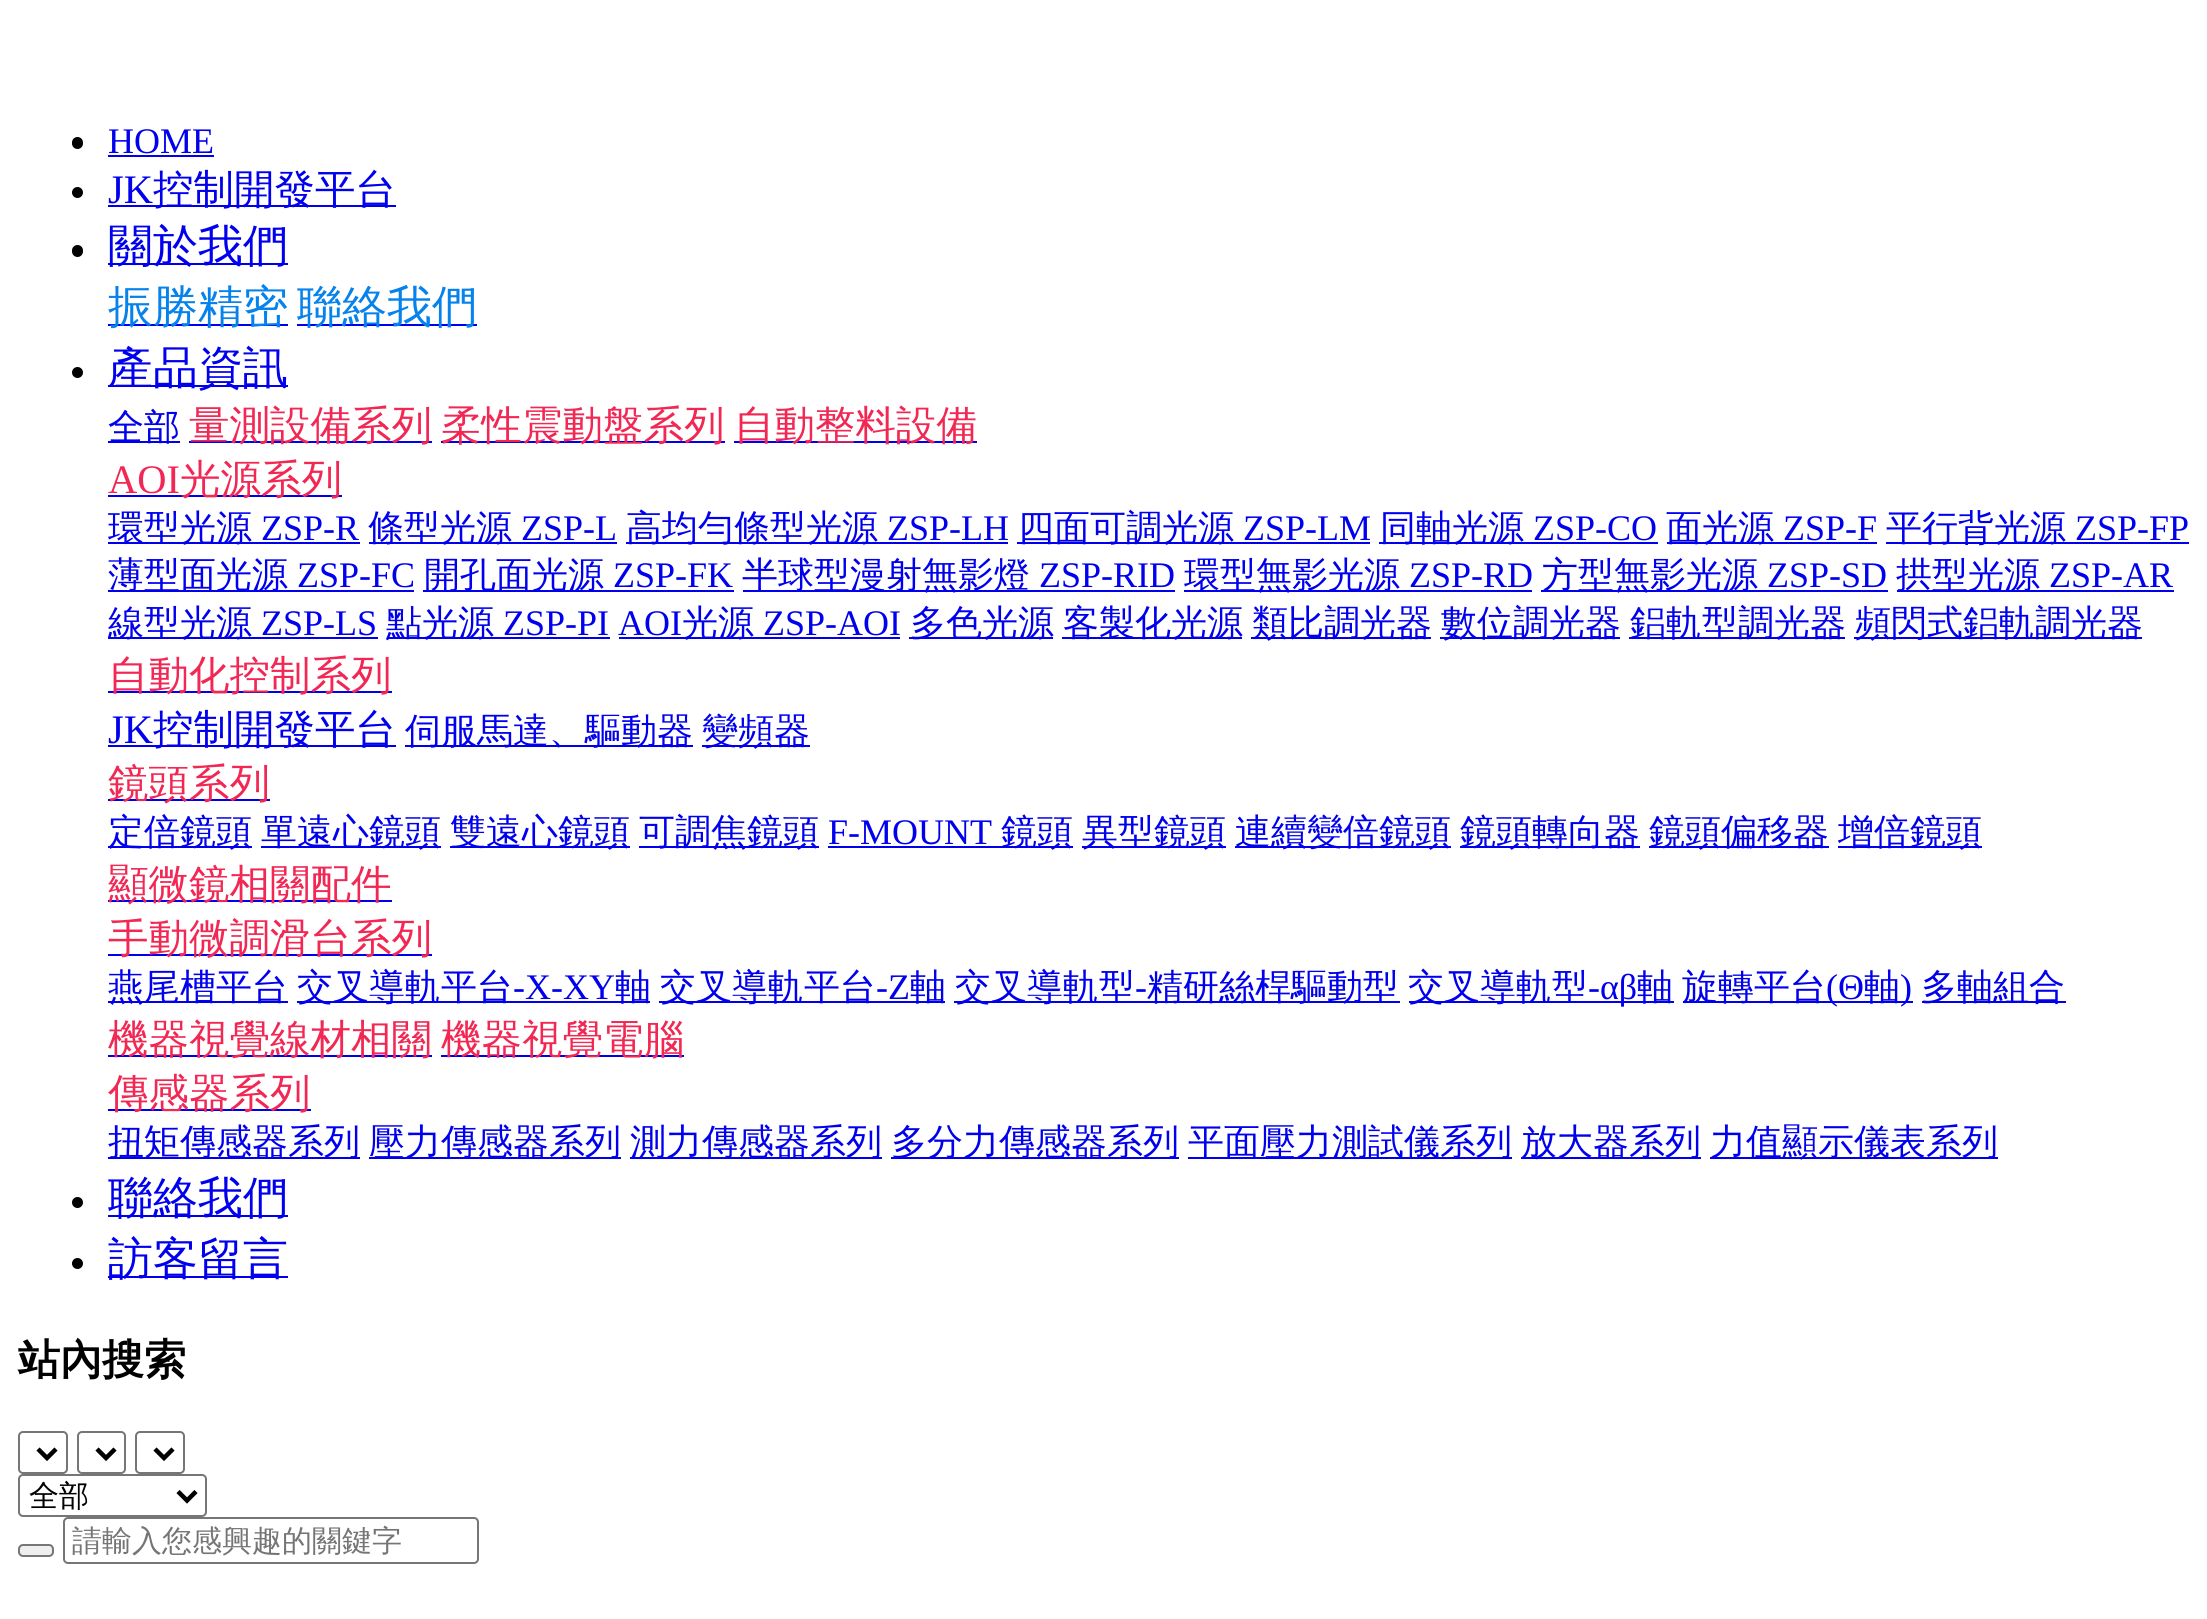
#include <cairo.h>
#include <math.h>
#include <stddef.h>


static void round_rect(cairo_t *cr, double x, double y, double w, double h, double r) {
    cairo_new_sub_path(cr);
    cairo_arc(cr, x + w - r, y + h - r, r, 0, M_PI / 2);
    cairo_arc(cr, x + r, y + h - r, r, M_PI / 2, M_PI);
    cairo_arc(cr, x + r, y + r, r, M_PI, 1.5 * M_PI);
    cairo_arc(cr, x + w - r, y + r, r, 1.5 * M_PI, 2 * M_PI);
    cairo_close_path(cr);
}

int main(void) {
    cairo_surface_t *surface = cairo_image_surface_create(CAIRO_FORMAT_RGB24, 2207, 1619);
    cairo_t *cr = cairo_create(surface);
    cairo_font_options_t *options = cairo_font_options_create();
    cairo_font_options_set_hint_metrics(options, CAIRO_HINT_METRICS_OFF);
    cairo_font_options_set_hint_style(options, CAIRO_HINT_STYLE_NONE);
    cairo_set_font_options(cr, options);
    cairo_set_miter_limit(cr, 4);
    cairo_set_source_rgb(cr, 1, 1, 1);
    cairo_paint(cr);
    cairo_set_source_rgb(cr, 0, 0, 0);
    round_rect(cr, 72, 137, 11, 12, 5.5);
    cairo_fill(cr);
    cairo_select_font_face(cr, "Liberation Serif", CAIRO_FONT_SLANT_NORMAL, CAIRO_FONT_WEIGHT_NORMAL);
    cairo_set_font_size(cr, 36);
    cairo_set_source_rgb(cr, 0, 0, 0.933);
    cairo_move_to(cr, 108, 153);
    cairo_show_text(cr, "HOME");
    cairo_rectangle(cr, 108, 155, 106, 2);
    cairo_fill(cr);
    cairo_set_source_rgb(cr, 0, 0, 0);
    cairo_arc(cr, 77.5, 192.5, 5.5, 0, 2 * M_PI);
    cairo_fill(cr);
    cairo_set_font_size(cr, 40.5);
    cairo_set_source_rgb(cr, 0, 0, 0.933);
    cairo_move_to(cr, 108, 203);
    cairo_show_text(cr, "JK");
    cairo_rectangle(cr, 108, 205, 288, 2);
    cairo_fill(cr);
    cairo_select_font_face(cr, "WenQuanYi Zen Hei Medium", CAIRO_FONT_SLANT_NORMAL, CAIRO_FONT_WEIGHT_NORMAL);
    cairo_move_to(cr, 153, 203);
    cairo_show_text(cr, "控制開發平台");
    cairo_set_source_rgb(cr, 0, 0, 0);
    round_rect(cr, 72, 245, 11, 12, 5.5);
    cairo_fill(cr);
    cairo_set_source_rgb(cr, 0, 0, 0.933);
    cairo_rectangle(cr, 108, 263, 180, 2);
    cairo_fill(cr);
    cairo_set_font_size(cr, 45);
    cairo_move_to(cr, 108, 261);
    cairo_show_text(cr, "關於我們");
    cairo_rectangle(cr, 108, 324, 180, 2);
    cairo_fill(cr);
    cairo_set_source_rgb(cr, 0.027, 0.51, 0.929);
    cairo_move_to(cr, 108, 322);
    cairo_show_text(cr, "振勝精密");
    cairo_set_source_rgb(cr, 0, 0, 0.933);
    cairo_rectangle(cr, 297, 324, 180, 2);
    cairo_fill(cr);
    cairo_set_source_rgb(cr, 0.027, 0.51, 0.929);
    cairo_move_to(cr, 297, 322);
    cairo_show_text(cr, "聯絡我們");
    cairo_set_source_rgb(cr, 0, 0, 0);
    cairo_new_path(cr);
    cairo_arc(cr, 77.5, 372.5, 5.5, 0, 2 * M_PI);
    cairo_fill(cr);
    cairo_set_source_rgb(cr, 0, 0, 0.933);
    cairo_rectangle(cr, 108, 385, 180, 2);
    cairo_fill(cr);
    cairo_move_to(cr, 108, 383);
    cairo_show_text(cr, "產品資訊");
    cairo_rectangle(cr, 108, 441, 72, 2);
    cairo_fill(cr);
    cairo_set_font_size(cr, 36);
    cairo_move_to(cr, 108, 439);
    cairo_show_text(cr, "全部");
    cairo_rectangle(cr, 189, 441, 243, 2);
    cairo_fill(cr);
    cairo_set_font_size(cr, 40.5);
    cairo_set_source_rgb(cr, 0.949, 0.153, 0.325);
    cairo_move_to(cr, 189, 439);
    cairo_show_text(cr, "量測設備系列");
    cairo_set_source_rgb(cr, 0, 0, 0.933);
    cairo_rectangle(cr, 441, 441, 284, 2);
    cairo_fill(cr);
    cairo_set_source_rgb(cr, 0.949, 0.153, 0.325);
    cairo_move_to(cr, 441, 439);
    cairo_show_text(cr, "柔性震動盤系列");
    cairo_set_source_rgb(cr, 0, 0, 0.933);
    cairo_rectangle(cr, 734, 441, 243, 2);
    cairo_fill(cr);
    cairo_set_source_rgb(cr, 0.949, 0.153, 0.325);
    cairo_move_to(cr, 734, 439);
    cairo_show_text(cr, "自動整料設備");
    cairo_select_font_face(cr, "Liberation Serif", CAIRO_FONT_SLANT_NORMAL, CAIRO_FONT_WEIGHT_NORMAL);
    cairo_move_to(cr, 108, 493);
    cairo_show_text(cr, "AOI");
    cairo_set_source_rgb(cr, 0, 0, 0.933);
    cairo_rectangle(cr, 108, 495, 234, 2);
    cairo_fill(cr);
    cairo_select_font_face(cr, "WenQuanYi Zen Hei Medium", CAIRO_FONT_SLANT_NORMAL, CAIRO_FONT_WEIGHT_NORMAL);
    cairo_set_source_rgb(cr, 0.949, 0.153, 0.325);
    cairo_move_to(cr, 180, 493);
    cairo_show_text(cr, "光源系列");
    cairo_set_source_rgb(cr, 0, 0, 0.933);
    cairo_rectangle(cr, 108, 542, 252, 2);
    cairo_fill(cr);
    cairo_set_font_size(cr, 36);
    cairo_move_to(cr, 108, 540);
    cairo_show_text(cr, "環型光源");
    cairo_select_font_face(cr, "Liberation Serif", CAIRO_FONT_SLANT_NORMAL, CAIRO_FONT_WEIGHT_NORMAL);
    cairo_move_to(cr, 261, 540);
    cairo_show_text(cr, "ZSP-R");
    cairo_rectangle(cr, 369, 542, 248, 2);
    cairo_fill(cr);
    cairo_select_font_face(cr, "WenQuanYi Zen Hei Medium", CAIRO_FONT_SLANT_NORMAL, CAIRO_FONT_WEIGHT_NORMAL);
    cairo_move_to(cr, 368, 540);
    cairo_show_text(cr, "條型光源");
    cairo_select_font_face(cr, "Liberation Serif", CAIRO_FONT_SLANT_NORMAL, CAIRO_FONT_WEIGHT_NORMAL);
    cairo_move_to(cr, 521, 540);
    cairo_show_text(cr, "ZSP-L");
    cairo_rectangle(cr, 626, 542, 382, 2);
    cairo_fill(cr);
    cairo_select_font_face(cr, "WenQuanYi Zen Hei Medium", CAIRO_FONT_SLANT_NORMAL, CAIRO_FONT_WEIGHT_NORMAL);
    cairo_move_to(cr, 626, 540);
    cairo_show_text(cr, "高均勻條型光源");
    cairo_select_font_face(cr, "Liberation Serif", CAIRO_FONT_SLANT_NORMAL, CAIRO_FONT_WEIGHT_NORMAL);
    cairo_move_to(cr, 887, 540);
    cairo_show_text(cr, "ZSP-LH");
    cairo_rectangle(cr, 1017, 542, 353, 2);
    cairo_fill(cr);
    cairo_select_font_face(cr, "WenQuanYi Zen Hei Medium", CAIRO_FONT_SLANT_NORMAL, CAIRO_FONT_WEIGHT_NORMAL);
    cairo_move_to(cr, 1018, 540);
    cairo_show_text(cr, "四面可調光源");
    cairo_select_font_face(cr, "Liberation Serif", CAIRO_FONT_SLANT_NORMAL, CAIRO_FONT_WEIGHT_NORMAL);
    cairo_move_to(cr, 1243, 540);
    cairo_show_text(cr, "ZSP-LM");
    cairo_rectangle(cr, 1379, 542, 279, 2);
    cairo_fill(cr);
    cairo_select_font_face(cr, "WenQuanYi Zen Hei Medium", CAIRO_FONT_SLANT_NORMAL, CAIRO_FONT_WEIGHT_NORMAL);
    cairo_move_to(cr, 1380, 540);
    cairo_show_text(cr, "同軸光源");
    cairo_select_font_face(cr, "Liberation Serif", CAIRO_FONT_SLANT_NORMAL, CAIRO_FONT_WEIGHT_NORMAL);
    cairo_move_to(cr, 1533, 540);
    cairo_show_text(cr, "ZSP-CO");
    cairo_rectangle(cr, 1667, 542, 210, 2);
    cairo_fill(cr);
    cairo_select_font_face(cr, "WenQuanYi Zen Hei Medium", CAIRO_FONT_SLANT_NORMAL, CAIRO_FONT_WEIGHT_NORMAL);
    cairo_move_to(cr, 1666, 540);
    cairo_show_text(cr, "面光源");
    cairo_select_font_face(cr, "Liberation Serif", CAIRO_FONT_SLANT_NORMAL, CAIRO_FONT_WEIGHT_NORMAL);
    cairo_move_to(cr, 1783, 540);
    cairo_show_text(cr, "ZSP-F");
    cairo_rectangle(cr, 1886, 542, 303, 2);
    cairo_fill(cr);
    cairo_select_font_face(cr, "WenQuanYi Zen Hei Medium", CAIRO_FONT_SLANT_NORMAL, CAIRO_FONT_WEIGHT_NORMAL);
    cairo_move_to(cr, 1886, 540);
    cairo_show_text(cr, "平行背光源");
    cairo_select_font_face(cr, "Liberation Serif", CAIRO_FONT_SLANT_NORMAL, CAIRO_FONT_WEIGHT_NORMAL);
    cairo_move_to(cr, 2075, 540);
    cairo_show_text(cr, "ZSP-FP");
    cairo_rectangle(cr, 108, 590, 306, 2);
    cairo_fill(cr);
    cairo_select_font_face(cr, "WenQuanYi Zen Hei Medium", CAIRO_FONT_SLANT_NORMAL, CAIRO_FONT_WEIGHT_NORMAL);
    cairo_move_to(cr, 108, 587);
    cairo_show_text(cr, "薄型面光源");
    cairo_select_font_face(cr, "Liberation Serif", CAIRO_FONT_SLANT_NORMAL, CAIRO_FONT_WEIGHT_NORMAL);
    cairo_move_to(cr, 297, 587);
    cairo_show_text(cr, "ZSP-FC");
    cairo_rectangle(cr, 423, 590, 311, 2);
    cairo_fill(cr);
    cairo_select_font_face(cr, "WenQuanYi Zen Hei Medium", CAIRO_FONT_SLANT_NORMAL, CAIRO_FONT_WEIGHT_NORMAL);
    cairo_move_to(cr, 424, 587);
    cairo_show_text(cr, "開孔面光源");
    cairo_select_font_face(cr, "Liberation Serif", CAIRO_FONT_SLANT_NORMAL, CAIRO_FONT_WEIGHT_NORMAL);
    cairo_move_to(cr, 613, 587);
    cairo_show_text(cr, "ZSP-FK");
    cairo_rectangle(cr, 743, 590, 432, 2);
    cairo_fill(cr);
    cairo_select_font_face(cr, "WenQuanYi Zen Hei Medium", CAIRO_FONT_SLANT_NORMAL, CAIRO_FONT_WEIGHT_NORMAL);
    cairo_move_to(cr, 742, 587);
    cairo_show_text(cr, "半球型漫射無影燈");
    cairo_select_font_face(cr, "Liberation Serif", CAIRO_FONT_SLANT_NORMAL, CAIRO_FONT_WEIGHT_NORMAL);
    cairo_move_to(cr, 1039, 587);
    cairo_show_text(cr, "ZSP-RID");
    cairo_rectangle(cr, 1184, 590, 348, 2);
    cairo_fill(cr);
    cairo_select_font_face(cr, "WenQuanYi Zen Hei Medium", CAIRO_FONT_SLANT_NORMAL, CAIRO_FONT_WEIGHT_NORMAL);
    cairo_move_to(cr, 1184, 587);
    cairo_show_text(cr, "環型無影光源");
    cairo_select_font_face(cr, "Liberation Serif", CAIRO_FONT_SLANT_NORMAL, CAIRO_FONT_WEIGHT_NORMAL);
    cairo_move_to(cr, 1409, 587);
    cairo_show_text(cr, "ZSP-RD");
    cairo_rectangle(cr, 1541, 590, 347, 2);
    cairo_fill(cr);
    cairo_select_font_face(cr, "WenQuanYi Zen Hei Medium", CAIRO_FONT_SLANT_NORMAL, CAIRO_FONT_WEIGHT_NORMAL);
    cairo_move_to(cr, 1542, 587);
    cairo_show_text(cr, "方型無影光源");
    cairo_select_font_face(cr, "Liberation Serif", CAIRO_FONT_SLANT_NORMAL, CAIRO_FONT_WEIGHT_NORMAL);
    cairo_move_to(cr, 1767, 587);
    cairo_show_text(cr, "ZSP-SD");
    cairo_rectangle(cr, 1897, 590, 277, 2);
    cairo_fill(cr);
    cairo_select_font_face(cr, "WenQuanYi Zen Hei Medium", CAIRO_FONT_SLANT_NORMAL, CAIRO_FONT_WEIGHT_NORMAL);
    cairo_move_to(cr, 1896, 587);
    cairo_show_text(cr, "拱型光源");
    cairo_select_font_face(cr, "Liberation Serif", CAIRO_FONT_SLANT_NORMAL, CAIRO_FONT_WEIGHT_NORMAL);
    cairo_move_to(cr, 2049, 587);
    cairo_show_text(cr, "ZSP-AR");
    cairo_rectangle(cr, 108, 637, 270, 2);
    cairo_fill(cr);
    cairo_select_font_face(cr, "WenQuanYi Zen Hei Medium", CAIRO_FONT_SLANT_NORMAL, CAIRO_FONT_WEIGHT_NORMAL);
    cairo_move_to(cr, 108, 635);
    cairo_show_text(cr, "線型光源");
    cairo_select_font_face(cr, "Liberation Serif", CAIRO_FONT_SLANT_NORMAL, CAIRO_FONT_WEIGHT_NORMAL);
    cairo_move_to(cr, 261, 635);
    cairo_show_text(cr, "ZSP-LS");
    cairo_rectangle(cr, 387, 637, 223, 2);
    cairo_fill(cr);
    cairo_select_font_face(cr, "WenQuanYi Zen Hei Medium", CAIRO_FONT_SLANT_NORMAL, CAIRO_FONT_WEIGHT_NORMAL);
    cairo_move_to(cr, 386, 635);
    cairo_show_text(cr, "點光源");
    cairo_select_font_face(cr, "Liberation Serif", CAIRO_FONT_SLANT_NORMAL, CAIRO_FONT_WEIGHT_NORMAL);
    cairo_move_to(cr, 503, 635);
    cairo_show_text(cr, "ZSP-PI AOI");
    cairo_rectangle(cr, 619, 637, 281, 2);
    cairo_fill(cr);
    cairo_select_font_face(cr, "WenQuanYi Zen Hei Medium", CAIRO_FONT_SLANT_NORMAL, CAIRO_FONT_WEIGHT_NORMAL);
    cairo_move_to(cr, 682, 635);
    cairo_show_text(cr, "光源");
    cairo_select_font_face(cr, "Liberation Serif", CAIRO_FONT_SLANT_NORMAL, CAIRO_FONT_WEIGHT_NORMAL);
    cairo_move_to(cr, 763, 635);
    cairo_show_text(cr, "ZSP-AOI");
    cairo_rectangle(cr, 909, 637, 144, 2);
    cairo_fill(cr);
    cairo_select_font_face(cr, "WenQuanYi Zen Hei Medium", CAIRO_FONT_SLANT_NORMAL, CAIRO_FONT_WEIGHT_NORMAL);
    cairo_move_to(cr, 910, 635);
    cairo_show_text(cr, "多色光源");
    cairo_rectangle(cr, 1062, 637, 180, 2);
    cairo_fill(cr);
    cairo_move_to(cr, 1063, 635);
    cairo_show_text(cr, "客製化光源");
    cairo_rectangle(cr, 1251, 637, 180, 2);
    cairo_fill(cr);
    cairo_move_to(cr, 1252, 635);
    cairo_show_text(cr, "類比調光器");
    cairo_rectangle(cr, 1440, 637, 180, 2);
    cairo_fill(cr);
    cairo_move_to(cr, 1441, 635);
    cairo_show_text(cr, "數位調光器");
    cairo_rectangle(cr, 1629, 637, 216, 2);
    cairo_fill(cr);
    cairo_move_to(cr, 1630, 635);
    cairo_show_text(cr, "鋁軌型調光器");
    cairo_rectangle(cr, 1854, 637, 288, 2);
    cairo_fill(cr);
    cairo_move_to(cr, 1855, 635);
    cairo_show_text(cr, "頻閃式鋁軌調光器");
    cairo_rectangle(cr, 108, 691, 284, 2);
    cairo_fill(cr);
    cairo_set_font_size(cr, 40.5);
    cairo_set_source_rgb(cr, 0.949, 0.153, 0.325);
    cairo_move_to(cr, 108, 689);
    cairo_show_text(cr, "自動化控制系列");
    cairo_select_font_face(cr, "Liberation Serif", CAIRO_FONT_SLANT_NORMAL, CAIRO_FONT_WEIGHT_NORMAL);
    cairo_set_source_rgb(cr, 0, 0, 0.933);
    cairo_move_to(cr, 108, 743);
    cairo_show_text(cr, "JK");
    cairo_rectangle(cr, 108, 745, 288, 2);
    cairo_fill(cr);
    cairo_select_font_face(cr, "WenQuanYi Zen Hei Medium", CAIRO_FONT_SLANT_NORMAL, CAIRO_FONT_WEIGHT_NORMAL);
    cairo_move_to(cr, 153, 743);
    cairo_show_text(cr, "控制開發平台");
    cairo_rectangle(cr, 405, 745, 288, 2);
    cairo_fill(cr);
    cairo_set_font_size(cr, 36);
    cairo_move_to(cr, 405, 743);
    cairo_show_text(cr, "伺服馬達、驅動器");
    cairo_rectangle(cr, 702, 745, 108, 2);
    cairo_fill(cr);
    cairo_move_to(cr, 702, 743);
    cairo_show_text(cr, "變頻器");
    cairo_rectangle(cr, 108, 799, 162, 2);
    cairo_fill(cr);
    cairo_set_font_size(cr, 40.5);
    cairo_set_source_rgb(cr, 0.949, 0.153, 0.325);
    cairo_move_to(cr, 108, 797);
    cairo_show_text(cr, "鏡頭系列");
    cairo_set_source_rgb(cr, 0, 0, 0.933);
    cairo_rectangle(cr, 108, 846, 144, 2);
    cairo_fill(cr);
    cairo_set_font_size(cr, 36);
    cairo_move_to(cr, 108, 844);
    cairo_show_text(cr, "定倍鏡頭");
    cairo_rectangle(cr, 261, 846, 180, 2);
    cairo_fill(cr);
    cairo_move_to(cr, 261, 844);
    cairo_show_text(cr, "單遠心鏡頭");
    cairo_rectangle(cr, 450, 846, 180, 2);
    cairo_fill(cr);
    cairo_move_to(cr, 450, 844);
    cairo_show_text(cr, "雙遠心鏡頭");
    cairo_rectangle(cr, 639, 846, 180, 2);
    cairo_fill(cr);
    cairo_move_to(cr, 639, 844);
    cairo_show_text(cr, "可調焦鏡頭");
    cairo_select_font_face(cr, "Liberation Serif", CAIRO_FONT_SLANT_NORMAL, CAIRO_FONT_WEIGHT_NORMAL);
    cairo_move_to(cr, 828, 844);
    cairo_show_text(cr, "F-MOUNT");
    cairo_rectangle(cr, 828, 846, 245, 2);
    cairo_fill(cr);
    cairo_select_font_face(cr, "WenQuanYi Zen Hei Medium", CAIRO_FONT_SLANT_NORMAL, CAIRO_FONT_WEIGHT_NORMAL);
    cairo_move_to(cr, 1001, 844);
    cairo_show_text(cr, "鏡頭");
    cairo_rectangle(cr, 1082, 846, 144, 2);
    cairo_fill(cr);
    cairo_move_to(cr, 1082, 844);
    cairo_show_text(cr, "異型鏡頭");
    cairo_rectangle(cr, 1235, 846, 216, 2);
    cairo_fill(cr);
    cairo_move_to(cr, 1235, 844);
    cairo_show_text(cr, "連續變倍鏡頭");
    cairo_rectangle(cr, 1460, 846, 180, 2);
    cairo_fill(cr);
    cairo_move_to(cr, 1460, 844);
    cairo_show_text(cr, "鏡頭轉向器");
    cairo_rectangle(cr, 1649, 846, 180, 2);
    cairo_fill(cr);
    cairo_move_to(cr, 1649, 844);
    cairo_show_text(cr, "鏡頭偏移器");
    cairo_rectangle(cr, 1838, 846, 144, 2);
    cairo_fill(cr);
    cairo_move_to(cr, 1838, 844);
    cairo_show_text(cr, "增倍鏡頭");
    cairo_rectangle(cr, 108, 900, 284, 2);
    cairo_fill(cr);
    cairo_set_font_size(cr, 40.5);
    cairo_set_source_rgb(cr, 0.949, 0.153, 0.325);
    cairo_move_to(cr, 108, 898);
    cairo_show_text(cr, "顯微鏡相關配件");
    cairo_set_source_rgb(cr, 0, 0, 0.933);
    cairo_rectangle(cr, 108, 954, 324, 2);
    cairo_fill(cr);
    cairo_set_source_rgb(cr, 0.949, 0.153, 0.325);
    cairo_move_to(cr, 108, 952);
    cairo_show_text(cr, "手動微調滑台系列");
    cairo_set_source_rgb(cr, 0, 0, 0.933);
    cairo_rectangle(cr, 108, 1001, 180, 2);
    cairo_fill(cr);
    cairo_set_font_size(cr, 36);
    cairo_move_to(cr, 108, 999);
    cairo_show_text(cr, "燕尾槽平台");
    cairo_rectangle(cr, 297, 1001, 353, 2);
    cairo_fill(cr);
    cairo_move_to(cr, 297, 999);
    cairo_show_text(cr, "交叉導軌平台");
    cairo_select_font_face(cr, "Liberation Serif", CAIRO_FONT_SLANT_NORMAL, CAIRO_FONT_WEIGHT_NORMAL);
    cairo_move_to(cr, 513, 999);
    cairo_show_text(cr, "-X-XY");
    cairo_select_font_face(cr, "WenQuanYi Zen Hei Medium", CAIRO_FONT_SLANT_NORMAL, CAIRO_FONT_WEIGHT_NORMAL);
    cairo_move_to(cr, 615, 999);
    cairo_show_text(cr, "軸");
    cairo_rectangle(cr, 659, 1001, 286, 2);
    cairo_fill(cr);
    cairo_move_to(cr, 660, 999);
    cairo_show_text(cr, "交叉導軌平台");
    cairo_select_font_face(cr, "Liberation Serif", CAIRO_FONT_SLANT_NORMAL, CAIRO_FONT_WEIGHT_NORMAL);
    cairo_move_to(cr, 876, 999);
    cairo_show_text(cr, "-Z");
    cairo_select_font_face(cr, "WenQuanYi Zen Hei Medium", CAIRO_FONT_SLANT_NORMAL, CAIRO_FONT_WEIGHT_NORMAL);
    cairo_move_to(cr, 910, 999);
    cairo_show_text(cr, "軸");
    cairo_rectangle(cr, 954, 1001, 446, 2);
    cairo_fill(cr);
    cairo_move_to(cr, 955, 999);
    cairo_show_text(cr, "交叉導軌型");
    cairo_select_font_face(cr, "Liberation Serif", CAIRO_FONT_SLANT_NORMAL, CAIRO_FONT_WEIGHT_NORMAL);
    cairo_move_to(cr, 1135, 999);
    cairo_show_text(cr, "-");
    cairo_select_font_face(cr, "WenQuanYi Zen Hei Medium", CAIRO_FONT_SLANT_NORMAL, CAIRO_FONT_WEIGHT_NORMAL);
    cairo_move_to(cr, 1147, 999);
    cairo_show_text(cr, "精研絲桿驅動型");
    cairo_rectangle(cr, 1409, 1001, 265, 2);
    cairo_fill(cr);
    cairo_move_to(cr, 1408, 999);
    cairo_show_text(cr, "交叉導軌型");
    cairo_select_font_face(cr, "Liberation Serif", CAIRO_FONT_SLANT_NORMAL, CAIRO_FONT_WEIGHT_NORMAL);
    cairo_move_to(cr, 1588, 999);
    cairo_show_text(cr, "-αβ");
    cairo_select_font_face(cr, "WenQuanYi Zen Hei Medium", CAIRO_FONT_SLANT_NORMAL, CAIRO_FONT_WEIGHT_NORMAL);
    cairo_move_to(cr, 1637, 999);
    cairo_show_text(cr, "軸");
    cairo_rectangle(cr, 1683, 1001, 230, 2);
    cairo_fill(cr);
    cairo_move_to(cr, 1682, 999);
    cairo_show_text(cr, "旋轉平台");
    cairo_select_font_face(cr, "Liberation Serif", CAIRO_FONT_SLANT_NORMAL, CAIRO_FONT_WEIGHT_NORMAL);
    cairo_move_to(cr, 1826, 999);
    cairo_show_text(cr, "(Θ");
    cairo_select_font_face(cr, "WenQuanYi Zen Hei Medium", CAIRO_FONT_SLANT_NORMAL, CAIRO_FONT_WEIGHT_NORMAL);
    cairo_move_to(cr, 1864, 999);
    cairo_show_text(cr, "軸");
    cairo_select_font_face(cr, "Liberation Serif", CAIRO_FONT_SLANT_NORMAL, CAIRO_FONT_WEIGHT_NORMAL);
    cairo_move_to(cr, 1900, 999);
    cairo_show_text(cr, ")");
    cairo_rectangle(cr, 1922, 1001, 144, 2);
    cairo_fill(cr);
    cairo_select_font_face(cr, "WenQuanYi Zen Hei Medium", CAIRO_FONT_SLANT_NORMAL, CAIRO_FONT_WEIGHT_NORMAL);
    cairo_move_to(cr, 1921, 999);
    cairo_show_text(cr, "多軸組合");
    cairo_rectangle(cr, 108, 1055, 324, 2);
    cairo_fill(cr);
    cairo_set_font_size(cr, 40.5);
    cairo_set_source_rgb(cr, 0.949, 0.153, 0.325);
    cairo_move_to(cr, 108, 1053);
    cairo_show_text(cr, "機器視覺線材相關");
    cairo_set_source_rgb(cr, 0, 0, 0.933);
    cairo_rectangle(cr, 441, 1055, 243, 2);
    cairo_fill(cr);
    cairo_set_source_rgb(cr, 0.949, 0.153, 0.325);
    cairo_move_to(cr, 441, 1053);
    cairo_show_text(cr, "機器視覺電腦");
    cairo_set_source_rgb(cr, 0, 0, 0.933);
    cairo_rectangle(cr, 108, 1109, 203, 2);
    cairo_fill(cr);
    cairo_set_source_rgb(cr, 0.949, 0.153, 0.325);
    cairo_move_to(cr, 108, 1107);
    cairo_show_text(cr, "傳感器系列");
    cairo_set_source_rgb(cr, 0, 0, 0.933);
    cairo_rectangle(cr, 108, 1157, 252, 2);
    cairo_fill(cr);
    cairo_set_font_size(cr, 36);
    cairo_move_to(cr, 108, 1154);
    cairo_show_text(cr, "扭矩傳感器系列");
    cairo_rectangle(cr, 369, 1157, 252, 2);
    cairo_fill(cr);
    cairo_move_to(cr, 369, 1154);
    cairo_show_text(cr, "壓力傳感器系列");
    cairo_rectangle(cr, 630, 1157, 252, 2);
    cairo_fill(cr);
    cairo_move_to(cr, 630, 1154);
    cairo_show_text(cr, "測力傳感器系列");
    cairo_rectangle(cr, 891, 1157, 288, 2);
    cairo_fill(cr);
    cairo_move_to(cr, 891, 1154);
    cairo_show_text(cr, "多分力傳感器系列");
    cairo_rectangle(cr, 1188, 1157, 324, 2);
    cairo_fill(cr);
    cairo_move_to(cr, 1188, 1154);
    cairo_show_text(cr, "平面壓力測試儀系列");
    cairo_rectangle(cr, 1521, 1157, 180, 2);
    cairo_fill(cr);
    cairo_move_to(cr, 1521, 1154);
    cairo_show_text(cr, "放大器系列");
    cairo_rectangle(cr, 1710, 1157, 288, 2);
    cairo_fill(cr);
    cairo_move_to(cr, 1710, 1154);
    cairo_show_text(cr, "力值顯示儀表系列");
    cairo_set_source_rgb(cr, 0, 0, 0);
    cairo_new_path(cr);
    cairo_arc(cr, 77.5, 1202.5, 5.5, 0, 2 * M_PI);
    cairo_fill(cr);
    cairo_set_source_rgb(cr, 0, 0, 0.933);
    cairo_rectangle(cr, 108, 1215, 180, 2);
    cairo_fill(cr);
    cairo_set_font_size(cr, 45);
    cairo_move_to(cr, 108, 1213);
    cairo_show_text(cr, "聯絡我們");
    cairo_set_source_rgb(cr, 0, 0, 0);
    cairo_new_path(cr);
    cairo_arc(cr, 77.5, 1263.5, 5.5, 0, 2 * M_PI);
    cairo_fill(cr);
    cairo_set_source_rgb(cr, 0, 0, 0.933);
    cairo_rectangle(cr, 108, 1276, 180, 2);
    cairo_fill(cr);
    cairo_move_to(cr, 108, 1274);
    cairo_show_text(cr, "訪客留言");
    cairo_select_font_face(cr, "WenQuanYi Zen Hei", CAIRO_FONT_SLANT_NORMAL, CAIRO_FONT_WEIGHT_BOLD);
    cairo_set_font_size(cr, 42);
    cairo_set_source_rgb(cr, 0, 0, 0);
    cairo_move_to(cr, 18, 1374);
    cairo_show_text(cr, "站內搜索");
    round_rect(cr, 19, 1432, 48, 41, 4);
    cairo_set_source_rgb(cr, 0.463, 0.463, 0.463);
    cairo_stroke(cr);
    cairo_new_path(cr);
    cairo_move_to(cr, 38, 1449);
    cairo_line_to(cr, 47, 1458);
    cairo_line_to(cr, 56, 1449);
    cairo_set_source_rgb(cr, 0, 0, 0);
    cairo_set_line_width(cr, 4.5);
    cairo_stroke(cr);
    round_rect(cr, 78, 1432, 47, 41, 4);
    cairo_set_source_rgb(cr, 0.463, 0.463, 0.463);
    cairo_set_line_width(cr, 2);
    cairo_stroke(cr);
    cairo_new_path(cr);
    cairo_move_to(cr, 97, 1449);
    cairo_line_to(cr, 106, 1458);
    cairo_line_to(cr, 115, 1449);
    cairo_set_source_rgb(cr, 0, 0, 0);
    cairo_set_line_width(cr, 4.5);
    cairo_stroke(cr);
    round_rect(cr, 136, 1432, 48, 41, 4);
    cairo_set_source_rgb(cr, 0.463, 0.463, 0.463);
    cairo_set_line_width(cr, 2);
    cairo_stroke(cr);
    cairo_new_path(cr);
    cairo_move_to(cr, 155, 1449);
    cairo_line_to(cr, 164, 1458);
    cairo_line_to(cr, 173, 1449);
    cairo_set_source_rgb(cr, 0, 0, 0);
    cairo_set_line_width(cr, 4.5);
    cairo_stroke(cr);
    round_rect(cr, 19, 1475, 187, 41, 4);
    cairo_set_source_rgb(cr, 0.463, 0.463, 0.463);
    cairo_set_line_width(cr, 2);
    cairo_stroke(cr);
    cairo_new_path(cr);
    cairo_move_to(cr, 178, 1491.5);
    cairo_line_to(cr, 187, 1500.5);
    cairo_line_to(cr, 196, 1491.5);
    cairo_set_source_rgb(cr, 0, 0, 0);
    cairo_set_line_width(cr, 4.5);
    cairo_stroke(cr);
    cairo_select_font_face(cr, "WenQuanYi Zen Hei Medium", CAIRO_FONT_SLANT_NORMAL, CAIRO_FONT_WEIGHT_NORMAL);
    cairo_set_font_size(cr, 30);
    cairo_move_to(cr, 29, 1506);
    cairo_show_text(cr, "全部");
    cairo_set_source_rgb(cr, 0.937, 0.937, 0.937);
    round_rect(cr, 19, 1545, 34, 11, 4);
    cairo_fill_preserve(cr);
    cairo_set_source_rgb(cr, 0.463, 0.463, 0.463);
    cairo_set_line_width(cr, 2);
    cairo_stroke(cr);
    round_rect(cr, 64, 1518, 414, 45, 4);
    cairo_stroke(cr);
    cairo_set_source_rgb(cr, 0.459, 0.459, 0.459);
    cairo_move_to(cr, 72, 1551);
    cairo_show_text(cr, "請輸入您感興趣的關鍵字");
    cairo_surface_write_to_png(surface, "page.png");
    cairo_font_options_destroy(options);
    cairo_destroy(cr);
    cairo_surface_destroy(surface);
    return 0;
}
